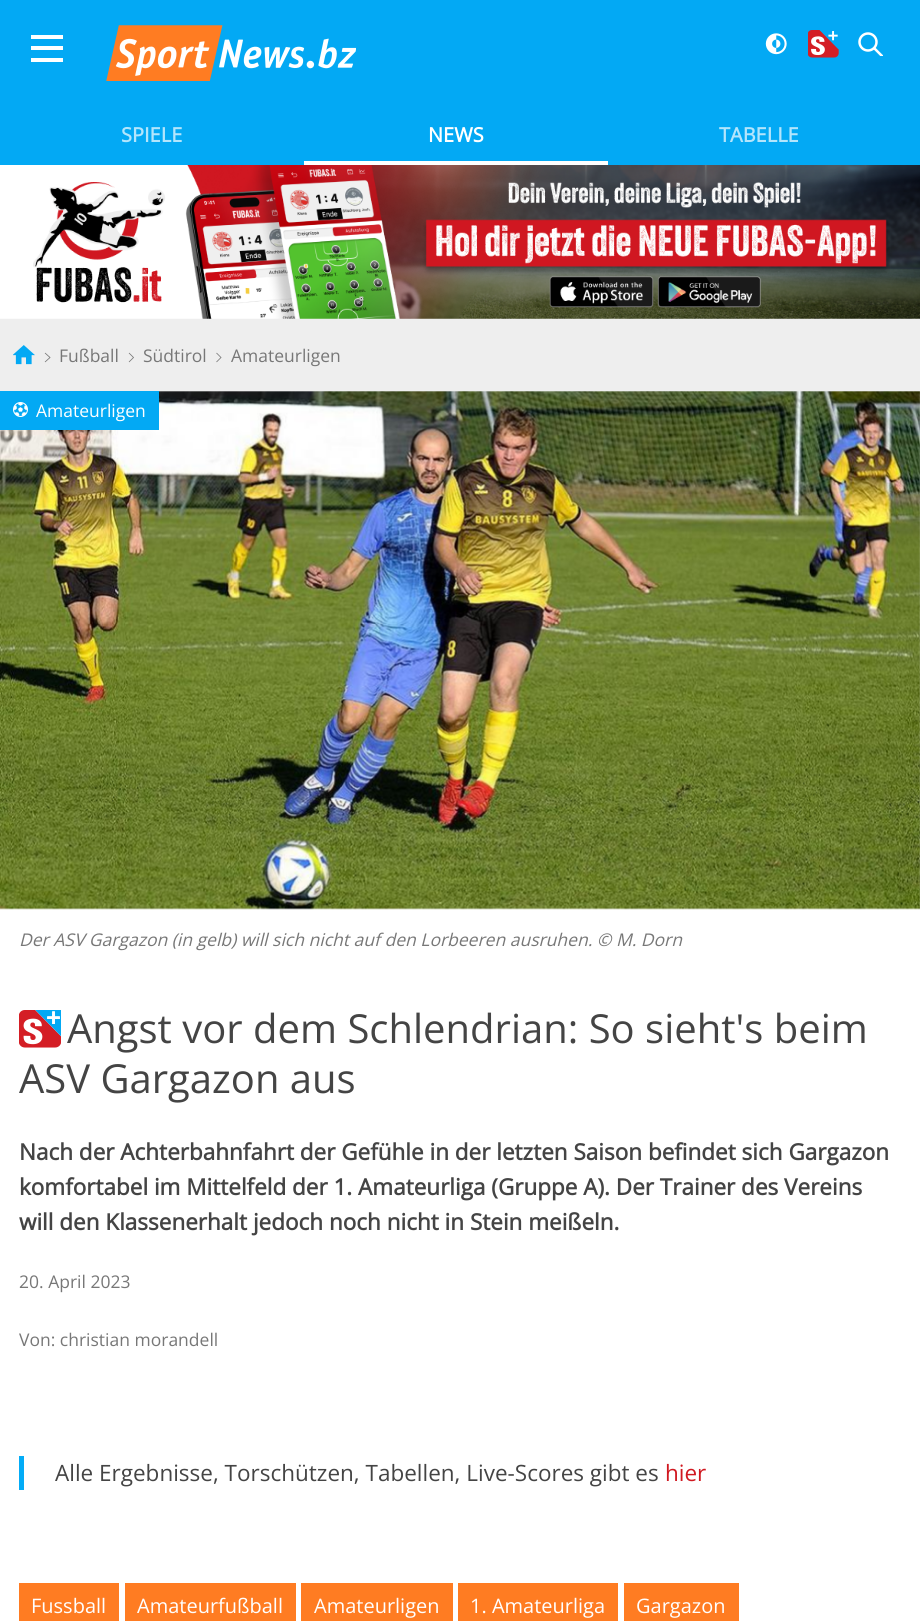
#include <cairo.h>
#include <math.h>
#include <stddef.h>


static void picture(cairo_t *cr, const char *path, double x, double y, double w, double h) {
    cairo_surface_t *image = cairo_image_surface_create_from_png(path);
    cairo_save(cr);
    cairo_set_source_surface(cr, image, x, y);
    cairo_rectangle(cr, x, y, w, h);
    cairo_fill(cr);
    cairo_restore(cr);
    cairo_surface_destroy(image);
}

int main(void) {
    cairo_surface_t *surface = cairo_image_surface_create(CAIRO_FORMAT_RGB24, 920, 1621);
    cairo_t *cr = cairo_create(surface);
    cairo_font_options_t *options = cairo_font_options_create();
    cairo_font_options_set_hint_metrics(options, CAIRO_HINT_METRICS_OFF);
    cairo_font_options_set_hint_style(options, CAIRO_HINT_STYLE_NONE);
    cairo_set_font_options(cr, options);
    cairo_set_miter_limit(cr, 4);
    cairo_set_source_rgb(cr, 0.933, 0.933, 0.933);
    cairo_paint(cr);
    cairo_set_source_rgb(cr, 0.012, 0.663, 0.957);
    cairo_rectangle(cr, 0, 0, 920, 165);
    cairo_fill(cr);
    cairo_set_source_rgb(cr, 1, 1, 1);
    cairo_rectangle(cr, 31, 46, 32, 4);
    cairo_fill(cr);
    cairo_rectangle(cr, 31, 35, 32, 4);
    cairo_fill(cr);
    cairo_rectangle(cr, 31, 58, 32, 4);
    cairo_fill(cr);
    picture(cr, "img1.png", 106, 25, 250, 56);
    picture(cr, "img2.png", 765, 33, 22, 22);
    picture(cr, "img3.png", 808, 30, 31, 28);
    cairo_arc(cr, 868, 42, 8.5, 0, 2 * M_PI);
    cairo_set_line_width(cr, 2.5);
    cairo_stroke(cr);
    cairo_save(cr);
    cairo_rectangle(cr, 858, 31, 25, 25);
    cairo_clip(cr);
    cairo_new_path(cr);
    cairo_move_to(cr, 874, 48);
    cairo_line_to(cr, 889.5, 63.5);
    cairo_close_path(cr);
    cairo_stroke(cr);
    cairo_restore(cr);
    cairo_select_font_face(cr, "Open Sans", CAIRO_FONT_SLANT_NORMAL, CAIRO_FONT_WEIGHT_BOLD);
    cairo_set_font_size(cr, 20);
    cairo_set_source_rgb(cr, 0.702, 0.898, 0.988);
    cairo_move_to(cr, 121, 142);
    cairo_show_text(cr, "SPIELE");
    cairo_set_source_rgb(cr, 1, 1, 1);
    cairo_rectangle(cr, 304, 161, 304, 4);
    cairo_fill(cr);
    cairo_move_to(cr, 428, 142);
    cairo_show_text(cr, "NEWS");
    cairo_set_source_rgb(cr, 0.702, 0.898, 0.988);
    cairo_move_to(cr, 719, 142);
    cairo_show_text(cr, "TABELLE");
    picture(cr, "img4.png", 0, 165, 920, 154);
    picture(cr, "img5.png", 13, 345, 22, 20);
    cairo_new_path(cr);
    cairo_move_to(cr, 45, 353);
    cairo_line_to(cr, 50, 357.5);
    cairo_line_to(cr, 45, 362);
    cairo_set_source_rgb(cr, 0.467, 0.467, 0.467);
    cairo_set_line_width(cr, 0.8);
    cairo_stroke(cr);
    cairo_select_font_face(cr, "Open Sans", CAIRO_FONT_SLANT_NORMAL, CAIRO_FONT_WEIGHT_NORMAL);
    cairo_set_font_size(cr, 17.5);
    cairo_move_to(cr, 59, 362);
    cairo_show_text(cr, "Fußball");
    cairo_new_path(cr);
    cairo_move_to(cr, 129, 353);
    cairo_line_to(cr, 133.5, 357.5);
    cairo_line_to(cr, 129, 362);
    cairo_stroke(cr);
    cairo_move_to(cr, 143, 362);
    cairo_show_text(cr, "Südtirol");
    cairo_new_path(cr);
    cairo_move_to(cr, 216.5, 353);
    cairo_line_to(cr, 221, 357.5);
    cairo_line_to(cr, 216.5, 362);
    cairo_stroke(cr);
    cairo_move_to(cr, 231, 362);
    cairo_show_text(cr, "Amateurligen");
    cairo_set_source_rgb(cr, 1, 1, 1);
    cairo_rectangle(cr, 0, 909, 920, 712);
    cairo_fill(cr);
    picture(cr, "img6.png", 0, 391, 920, 519);
    cairo_set_source_rgb(cr, 0.012, 0.663, 0.957);
    cairo_rectangle(cr, 0, 391, 159, 39);
    cairo_fill(cr);
    cairo_select_font_face(cr, "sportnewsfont", CAIRO_FONT_SLANT_NORMAL, CAIRO_FONT_WEIGHT_NORMAL);
    cairo_set_font_size(cr, 15);
    cairo_set_source_rgb(cr, 1, 1, 1);
    cairo_move_to(cr, 13, 417);
    cairo_show_text(cr, "a");
    cairo_select_font_face(cr, "Open Sans", CAIRO_FONT_SLANT_NORMAL, CAIRO_FONT_WEIGHT_NORMAL);
    cairo_set_font_size(cr, 17.5);
    cairo_move_to(cr, 36, 417);
    cairo_show_text(cr, "Amateurligen");
    cairo_select_font_face(cr, "Open Sans", CAIRO_FONT_SLANT_ITALIC, CAIRO_FONT_WEIGHT_NORMAL);
    cairo_set_source_rgb(cr, 0.467, 0.467, 0.467);
    cairo_move_to(cr, 19, 946);
    cairo_show_text(cr, "Der ASV Gargazon (in gelb) will sich nicht auf den Lorbeeren ausruhen. © M. Dorn");
    picture(cr, "img7.png", 19, 1010, 42, 38);
    cairo_select_font_face(cr, "Open Sans", CAIRO_FONT_SLANT_NORMAL, CAIRO_FONT_WEIGHT_NORMAL);
    cairo_set_font_size(cr, 40);
    cairo_set_source_rgb(cr, 0.267, 0.267, 0.267);
    cairo_move_to(cr, 67, 1043);
    cairo_show_text(cr, "Angst vor dem Schlendrian: So sieht's beim");
    cairo_move_to(cr, 19, 1093);
    cairo_show_text(cr, "ASV Gargazon aus");
    cairo_select_font_face(cr, "Open Sans", CAIRO_FONT_SLANT_NORMAL, CAIRO_FONT_WEIGHT_BOLD);
    cairo_set_font_size(cr, 22.5);
    cairo_move_to(cr, 19, 1160);
    cairo_show_text(cr, "Nach der Achterbahnfahrt der Gefühle in der letzten Saison befindet sich Gargazon");
    cairo_move_to(cr, 19, 1195);
    cairo_show_text(cr, "komfortabel im Mittelfeld der 1. Amateurliga (Gruppe A). Der Trainer des Vereins");
    cairo_move_to(cr, 19, 1230);
    cairo_show_text(cr, "will den Klassenerhalt jedoch noch nicht in Stein meißeln.");
    cairo_select_font_face(cr, "Open Sans", CAIRO_FONT_SLANT_NORMAL, CAIRO_FONT_WEIGHT_NORMAL);
    cairo_set_font_size(cr, 17.5);
    cairo_set_source_rgb(cr, 0.467, 0.467, 0.467);
    cairo_move_to(cr, 19, 1288);
    cairo_show_text(cr, "20. April 2023");
    cairo_move_to(cr, 19, 1346);
    cairo_show_text(cr, "Von: christian morandell");
    cairo_set_source_rgb(cr, 0.012, 0.675, 0.965);
    cairo_rectangle(cr, 19, 1456, 5, 34);
    cairo_fill(cr);
    cairo_set_font_size(cr, 22.5);
    cairo_set_source_rgb(cr, 0.267, 0.267, 0.267);
    cairo_move_to(cr, 55, 1481);
    cairo_show_text(cr, "Alle Ergebnisse, Torschützen, Tabellen, Live-Scores gibt es");
    cairo_set_source_rgb(cr, 0.816, 0.094, 0.125);
    cairo_move_to(cr, 665, 1481);
    cairo_show_text(cr, "hier");
    cairo_set_source_rgb(cr, 1, 0.486, 0.133);
    cairo_rectangle(cr, 19, 1583, 100, 38);
    cairo_fill(cr);
    cairo_set_font_size(cr, 20);
    cairo_set_source_rgb(cr, 1, 1, 1);
    cairo_move_to(cr, 31, 1613);
    cairo_show_text(cr, "Fussball");
    cairo_set_source_rgb(cr, 1, 0.486, 0.133);
    cairo_rectangle(cr, 125, 1583, 171, 38);
    cairo_fill(cr);
    cairo_set_source_rgb(cr, 1, 1, 1);
    cairo_move_to(cr, 137, 1613);
    cairo_show_text(cr, "Amateurfußball");
    cairo_set_source_rgb(cr, 1, 0.486, 0.133);
    cairo_rectangle(cr, 301, 1583, 152, 38);
    cairo_fill(cr);
    cairo_set_source_rgb(cr, 1, 1, 1);
    cairo_move_to(cr, 314, 1613);
    cairo_show_text(cr, "Amateurligen");
    cairo_set_source_rgb(cr, 1, 0.486, 0.133);
    cairo_rectangle(cr, 458, 1583, 160, 38);
    cairo_fill(cr);
    cairo_set_source_rgb(cr, 1, 1, 1);
    cairo_move_to(cr, 470, 1613);
    cairo_show_text(cr, "1. Amateurliga");
    cairo_set_source_rgb(cr, 1, 0.486, 0.133);
    cairo_rectangle(cr, 624, 1583, 115, 38);
    cairo_fill(cr);
    cairo_set_source_rgb(cr, 1, 1, 1);
    cairo_move_to(cr, 636, 1613);
    cairo_show_text(cr, "Gargazon");
    cairo_surface_write_to_png(surface, "page.png");
    cairo_font_options_destroy(options);
    cairo_destroy(cr);
    cairo_surface_destroy(surface);
    return 0;
}
